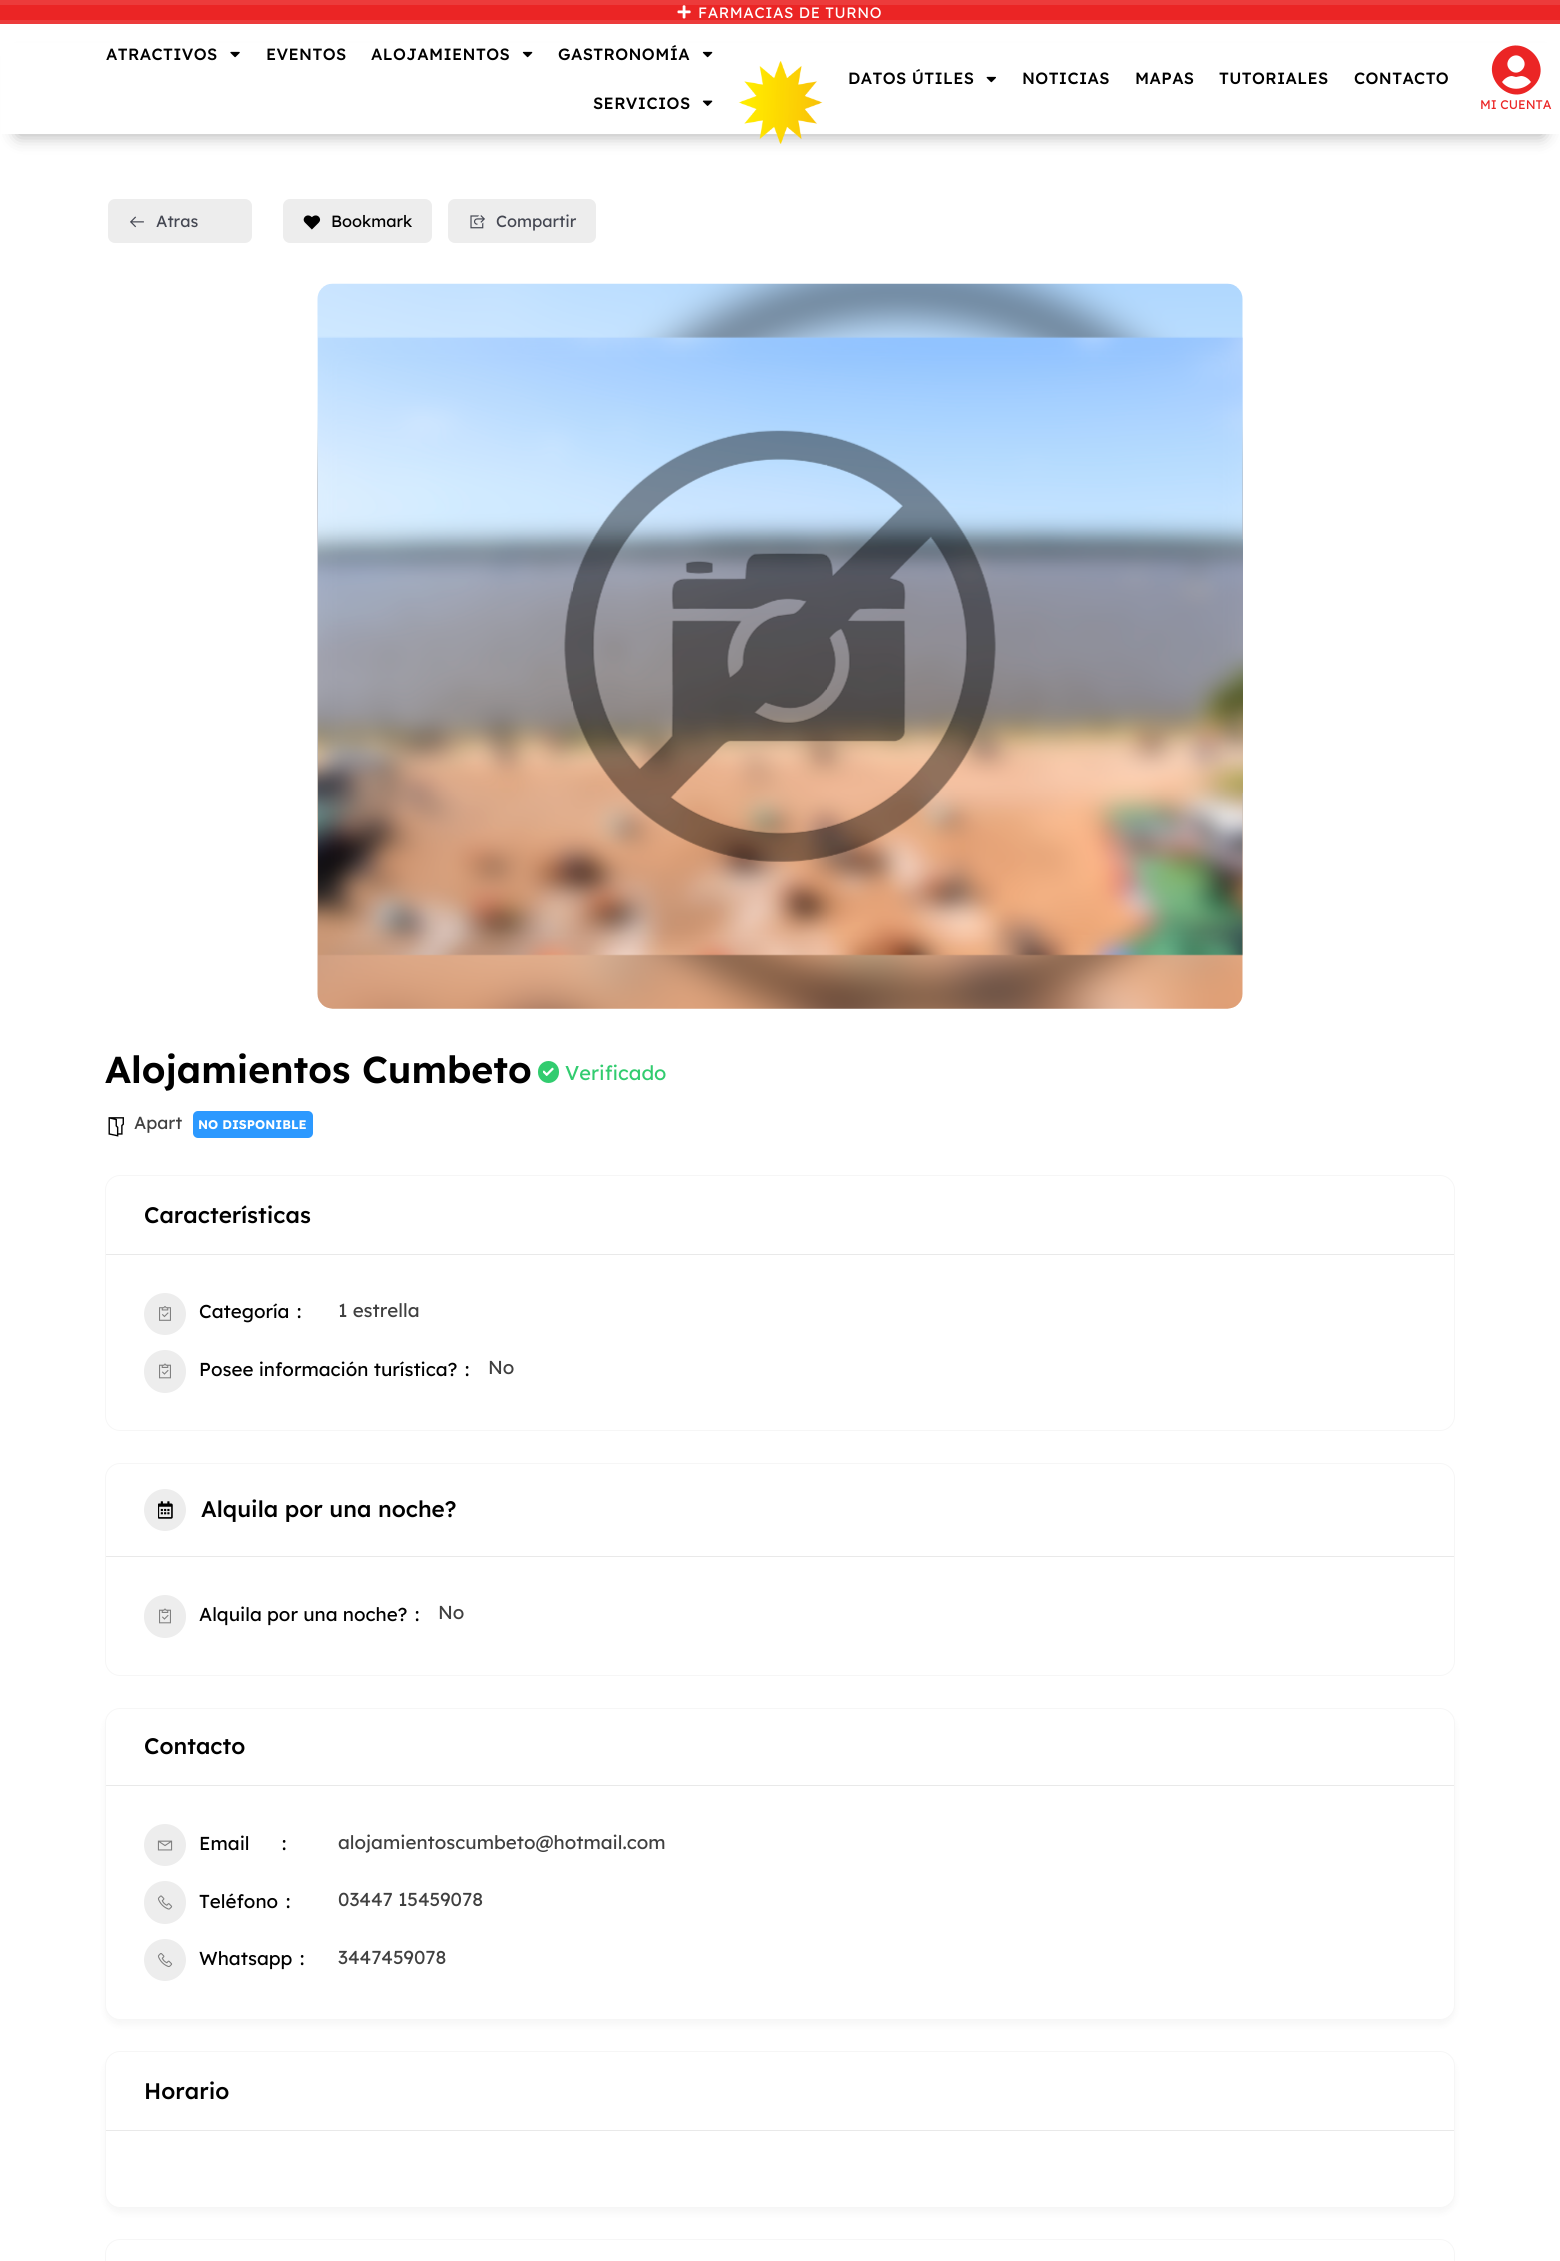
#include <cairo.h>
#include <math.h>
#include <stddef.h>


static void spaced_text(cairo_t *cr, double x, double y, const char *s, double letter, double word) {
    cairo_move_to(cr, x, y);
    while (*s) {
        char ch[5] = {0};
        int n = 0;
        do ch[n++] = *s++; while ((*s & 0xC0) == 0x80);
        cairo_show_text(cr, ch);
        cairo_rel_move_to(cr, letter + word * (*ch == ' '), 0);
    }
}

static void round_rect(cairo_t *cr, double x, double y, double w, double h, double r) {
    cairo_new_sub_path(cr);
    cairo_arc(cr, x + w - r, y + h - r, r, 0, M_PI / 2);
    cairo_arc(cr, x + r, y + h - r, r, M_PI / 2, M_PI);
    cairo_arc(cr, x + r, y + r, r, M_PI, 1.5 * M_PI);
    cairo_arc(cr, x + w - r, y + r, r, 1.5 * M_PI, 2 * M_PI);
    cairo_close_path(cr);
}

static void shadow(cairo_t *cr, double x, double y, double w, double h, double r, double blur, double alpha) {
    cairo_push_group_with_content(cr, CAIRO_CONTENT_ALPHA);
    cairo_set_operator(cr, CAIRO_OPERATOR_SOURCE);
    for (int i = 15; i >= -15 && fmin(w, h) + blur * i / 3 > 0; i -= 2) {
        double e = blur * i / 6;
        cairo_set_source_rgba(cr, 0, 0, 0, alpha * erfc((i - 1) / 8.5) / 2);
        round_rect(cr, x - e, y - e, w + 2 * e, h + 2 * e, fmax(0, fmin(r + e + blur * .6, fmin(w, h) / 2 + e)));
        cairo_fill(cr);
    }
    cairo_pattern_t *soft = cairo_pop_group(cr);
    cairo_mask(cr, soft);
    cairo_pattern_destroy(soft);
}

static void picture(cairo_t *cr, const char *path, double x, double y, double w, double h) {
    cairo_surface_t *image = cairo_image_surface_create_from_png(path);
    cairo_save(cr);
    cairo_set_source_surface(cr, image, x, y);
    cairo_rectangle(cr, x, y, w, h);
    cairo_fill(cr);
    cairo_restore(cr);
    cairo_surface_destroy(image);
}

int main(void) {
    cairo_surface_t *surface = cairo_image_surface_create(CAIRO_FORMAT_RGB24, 1560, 2261);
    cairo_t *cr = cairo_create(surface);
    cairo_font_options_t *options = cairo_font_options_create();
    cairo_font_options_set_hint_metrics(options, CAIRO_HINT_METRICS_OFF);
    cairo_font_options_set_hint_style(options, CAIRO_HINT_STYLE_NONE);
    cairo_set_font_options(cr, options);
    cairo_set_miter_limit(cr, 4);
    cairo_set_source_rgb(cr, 1, 1, 1);
    cairo_paint(cr);
    cairo_set_source_rgb(cr, 0.922, 0.231, 0.231);
    cairo_rectangle(cr, 0, 0, 1560, 24);
    cairo_fill(cr);
    cairo_set_source_rgb(cr, 0.918, 0.145, 0.145);
    cairo_rectangle(cr, 0, 5, 1560, 15);
    cairo_fill(cr);
    picture(cr, "img1.png", 677, 5, 14, 14);
    cairo_select_font_face(cr, "Lexend", CAIRO_FONT_SLANT_NORMAL, CAIRO_FONT_WEIGHT_NORMAL);
    cairo_set_font_size(cr, 15);
    cairo_set_source_rgb(cr, 1, 1, 1);
    spaced_text(cr, 698, 18, "FARMACIAS DE TURNO", 0.6, 0);
    cairo_set_source_rgb(cr, 0, 0, 0);
    shadow(cr, 18, 60, 1525, 75, 0, 9, 0.33);
    cairo_set_source_rgb(cr, 1, 1, 1);
    cairo_rectangle(cr, 1, 43, 1559, 91);
    cairo_fill(cr);
    cairo_select_font_face(cr, "Lexend Medium", CAIRO_FONT_SLANT_NORMAL, CAIRO_FONT_WEIGHT_NORMAL);
    cairo_set_font_size(cr, 16.25);
    cairo_set_source_rgb(cr, 0, 0, 0);
    spaced_text(cr, 106, 60, "ATRACTIVOS", 0.4, 0);
    picture(cr, "img2.png", 230, 51, 10, 7);
    spaced_text(cr, 266, 60, "EVENTOS", 0.4, 0);
    spaced_text(cr, 371, 60, "ALOJAMIENTOS", 0.4, 0);
    picture(cr, "img3.png", 522, 51, 11, 7);
    spaced_text(cr, 558, 60, "GASTRONOMÍA", 0.4, 0);
    picture(cr, "img3.png", 702, 51, 11, 7);
    spaced_text(cr, 593, 109, "SERVICIOS", 0.4, 0);
    picture(cr, "img4.png", 702, 100, 11, 6);
    picture(cr, "img5.png", 738, 61, 85, 83);
    spaced_text(cr, 848, 84, "DATOS ÚTILES", 0.4, 0);
    picture(cr, "img6.png", 986, 76, 10, 7);
    spaced_text(cr, 1022, 84, "NOTICIAS", 0.4, 0);
    spaced_text(cr, 1135, 84, "MAPAS", 0.4, 0);
    spaced_text(cr, 1219, 84, "TUTORIALES", 0.4, 0);
    spaced_text(cr, 1354, 84, "CONTACTO", 0.4, 0);
    cairo_set_source_rgb(cr, 0.918, 0.145, 0.145);
    cairo_new_path(cr);
    cairo_move_to(cr, 1499, 53);
    cairo_curve_to(cr, 1522, 30, 1556, 65, 1533, 87);
    cairo_curve_to(cr, 1511, 110, 1477, 75, 1499, 53);
    cairo_close_path(cr);
    cairo_move_to(cr, 1522, 58);
    cairo_curve_to(cr, 1514, 50, 1502, 62, 1510, 70);
    cairo_curve_to(cr, 1518, 78, 1530, 66, 1522, 58);
    cairo_close_path(cr);
    cairo_move_to(cr, 1502, 82);
    cairo_curve_to(cr, 1509, 91, 1523, 91, 1531, 82);
    cairo_curve_to(cr, 1529, 79, 1525, 76, 1521, 76);
    cairo_line_to(cr, 1516, 77);
    cairo_line_to(cr, 1512, 76);
    cairo_curve_to(cr, 1508, 76, 1504, 79, 1502, 82);
    cairo_close_path(cr);
    cairo_fill(cr);
    cairo_select_font_face(cr, "Lexend", CAIRO_FONT_SLANT_NORMAL, CAIRO_FONT_WEIGHT_NORMAL);
    cairo_set_font_size(cr, 12.5);
    cairo_move_to(cr, 1480, 109);
    cairo_show_text(cr, "MI CUENTA");
    cairo_set_source_rgb(cr, 0.929, 0.929, 0.929);
    round_rect(cr, 106.5, 197.5, 147, 47, 8.5);
    cairo_fill_preserve(cr);
    cairo_set_source_rgb(cr, 1, 1, 1);
    cairo_set_line_width(cr, 3);
    cairo_stroke(cr);
    picture(cr, "img7.png", 130, 216, 14, 12);
    cairo_set_font_size(cr, 16.25);
    cairo_set_source_rgb(cr, 0.267, 0.278, 0.322);
    cairo_move_to(cr, 156, 227);
    cairo_show_text(cr, "Atras");
    cairo_set_source_rgb(cr, 0.929, 0.929, 0.929);
    round_rect(cr, 281.5, 197.5, 152, 47, 8.5);
    cairo_fill_preserve(cr);
    cairo_set_source_rgb(cr, 1, 1, 1);
    cairo_stroke(cr);
    picture(cr, "img8.png", 303, 215, 18, 15);
    cairo_set_source_rgb(cr, 0, 0, 0);
    cairo_move_to(cr, 331, 227);
    cairo_show_text(cr, "Bookmark");
    cairo_set_source_rgb(cr, 0.929, 0.929, 0.929);
    round_rect(cr, 446.5, 197.5, 151, 47, 8.5);
    cairo_fill_preserve(cr);
    cairo_set_source_rgb(cr, 1, 1, 1);
    cairo_stroke(cr);
    picture(cr, "img9.png", 470, 215, 15, 14);
    cairo_set_source_rgb(cr, 0.267, 0.278, 0.322);
    cairo_move_to(cr, 496, 227);
    cairo_show_text(cr, "Compartir");
    picture(cr, "img10.png", 317, 283, 926, 726);
    picture(cr, "img11.png", 318, 336, 925, 620);
    cairo_select_font_face(cr, "Lexend SemiBold", CAIRO_FONT_SLANT_NORMAL, CAIRO_FONT_WEIGHT_NORMAL);
    cairo_set_font_size(cr, 37.5);
    cairo_set_source_rgb(cr, 0, 0, 0);
    cairo_move_to(cr, 105, 1083);
    cairo_show_text(cr, "Alojamientos Cumbeto");
    cairo_set_source_rgb(cr, 0.196, 0.8, 0.435);
    round_rect(cr, 538, 1061, 21, 22, 10.5);
    cairo_fill(cr);
    picture(cr, "img12.png", 543, 1067, 11, 9);
    cairo_select_font_face(cr, "Lexend", CAIRO_FONT_SLANT_NORMAL, CAIRO_FONT_WEIGHT_NORMAL);
    cairo_set_font_size(cr, 20);
    cairo_move_to(cr, 565, 1080);
    cairo_show_text(cr, "Verificado");
    picture(cr, "img13.png", 108, 1117, 16, 20);
    cairo_set_font_size(cr, 17.5);
    cairo_set_source_rgb(cr, 0.251, 0.251, 0.251);
    cairo_move_to(cr, 134, 1129);
    cairo_show_text(cr, "Apart");
    cairo_set_source_rgb(cr, 0.173, 0.6, 1);
    round_rect(cr, 193, 1111, 120, 27, 5);
    cairo_fill(cr);
    cairo_select_font_face(cr, "Lexend", CAIRO_FONT_SLANT_NORMAL, CAIRO_FONT_WEIGHT_BOLD);
    cairo_set_font_size(cr, 12.5);
    cairo_set_source_rgb(cr, 1, 1, 1);
    cairo_move_to(cr, 198, 1129);
    cairo_show_text(cr, "NO DISPONIBLE");
    round_rect(cr, 105.5, 1175.5, 1349, 255, 14.5);
    cairo_set_source_rgb(cr, 0.961, 0.961, 0.961);
    cairo_set_line_width(cr, 1);
    cairo_stroke(cr);
    cairo_set_source_rgb(cr, 0.914, 0.914, 0.914);
    cairo_rectangle(cr, 106, 1254, 1348, 1);
    cairo_fill(cr);
    cairo_select_font_face(cr, "Lexend Medium", CAIRO_FONT_SLANT_NORMAL, CAIRO_FONT_WEIGHT_NORMAL);
    cairo_set_font_size(cr, 22.5);
    cairo_set_source_rgb(cr, 0, 0, 0);
    cairo_move_to(cr, 144, 1223);
    cairo_show_text(cr, "Características");
    cairo_set_source_rgb(cr, 0.929, 0.929, 0.929);
    cairo_new_path(cr);
    cairo_arc(cr, 165, 1314, 21, 0, 2 * M_PI);
    cairo_fill(cr);
    picture(cr, "img14.png", 159, 1306, 12, 15);
    cairo_select_font_face(cr, "Lexend", CAIRO_FONT_SLANT_NORMAL, CAIRO_FONT_WEIGHT_NORMAL);
    cairo_set_font_size(cr, 18.75);
    cairo_set_source_rgb(cr, 0, 0, 0);
    cairo_move_to(cr, 199, 1318);
    cairo_show_text(cr, "Categoría");
    cairo_move_to(cr, 297, 1318);
    cairo_show_text(cr, ":");
    cairo_set_source_rgb(cr, 0.251, 0.251, 0.251);
    cairo_move_to(cr, 338, 1317);
    cairo_show_text(cr, "1 estrella");
    cairo_set_source_rgb(cr, 0.929, 0.929, 0.929);
    round_rect(cr, 144, 1350, 42, 43, 21);
    cairo_fill(cr);
    picture(cr, "img15.png", 159, 1363, 12, 16);
    cairo_set_source_rgb(cr, 0, 0, 0);
    cairo_move_to(cr, 199, 1376);
    cairo_show_text(cr, "Posee información turística?");
    cairo_move_to(cr, 465, 1376);
    cairo_show_text(cr, ":");
    cairo_set_source_rgb(cr, 0.251, 0.251, 0.251);
    cairo_move_to(cr, 488, 1374);
    cairo_show_text(cr, "No");
    round_rect(cr, 105.5, 1463.5, 1349, 212, 14.5);
    cairo_set_source_rgb(cr, 0.961, 0.961, 0.961);
    cairo_stroke(cr);
    cairo_set_source_rgb(cr, 0.914, 0.914, 0.914);
    cairo_rectangle(cr, 106, 1556, 1348, 1);
    cairo_fill(cr);
    cairo_set_source_rgb(cr, 0.929, 0.929, 0.929);
    cairo_arc(cr, 165, 1510, 21, 0, 2 * M_PI);
    cairo_fill(cr);
    picture(cr, "img16.png", 158, 1501, 15, 18);
    cairo_select_font_face(cr, "Lexend Medium", CAIRO_FONT_SLANT_NORMAL, CAIRO_FONT_WEIGHT_NORMAL);
    cairo_set_font_size(cr, 22.5);
    cairo_set_source_rgb(cr, 0, 0, 0);
    cairo_move_to(cr, 201, 1517);
    cairo_show_text(cr, "Alquila por una noche?");
    cairo_set_source_rgb(cr, 0.929, 0.929, 0.929);
    round_rect(cr, 144, 1595, 42, 43, 21);
    cairo_fill(cr);
    picture(cr, "img15.png", 159, 1608, 12, 16);
    cairo_select_font_face(cr, "Lexend", CAIRO_FONT_SLANT_NORMAL, CAIRO_FONT_WEIGHT_NORMAL);
    cairo_set_font_size(cr, 18.75);
    cairo_set_source_rgb(cr, 0, 0, 0);
    cairo_move_to(cr, 199, 1621);
    cairo_show_text(cr, "Alquila por una noche?");
    cairo_move_to(cr, 415, 1621);
    cairo_show_text(cr, ":");
    cairo_set_source_rgb(cr, 0.251, 0.251, 0.251);
    cairo_move_to(cr, 438, 1619);
    cairo_show_text(cr, "No");
    cairo_set_source_rgb(cr, 0, 0, 0);
    shadow(cr, 105, 1713, 1350, 312, 15, 4, 0.04);
    cairo_set_source_rgb(cr, 1, 1, 1);
    round_rect(cr, 105.5, 1708.5, 1349, 311, 14.5);
    cairo_fill_preserve(cr);
    cairo_set_source_rgb(cr, 0.961, 0.961, 0.961);
    cairo_stroke(cr);
    cairo_set_source_rgb(cr, 0.914, 0.914, 0.914);
    cairo_rectangle(cr, 106, 1785, 1348, 1);
    cairo_fill(cr);
    cairo_select_font_face(cr, "Lexend Medium", CAIRO_FONT_SLANT_NORMAL, CAIRO_FONT_WEIGHT_NORMAL);
    cairo_set_font_size(cr, 22.5);
    cairo_set_source_rgb(cr, 0, 0, 0);
    cairo_move_to(cr, 144, 1754);
    cairo_show_text(cr, "Contacto");
    cairo_set_source_rgb(cr, 0.929, 0.929, 0.929);
    cairo_new_path(cr);
    cairo_arc(cr, 165, 1845, 21, 0, 2 * M_PI);
    cairo_fill(cr);
    picture(cr, "img17.png", 157, 1840, 16, 11);
    cairo_select_font_face(cr, "Lexend", CAIRO_FONT_SLANT_NORMAL, CAIRO_FONT_WEIGHT_NORMAL);
    cairo_set_font_size(cr, 18.75);
    cairo_set_source_rgb(cr, 0, 0, 0);
    cairo_move_to(cr, 199, 1850);
    cairo_show_text(cr, "Email");
    cairo_move_to(cr, 282, 1850);
    cairo_show_text(cr, ":");
    cairo_set_source_rgb(cr, 0.251, 0.251, 0.251);
    cairo_move_to(cr, 338, 1849);
    cairo_show_text(cr, "alojamientoscumbeto@hotmail.com");
    cairo_set_source_rgb(cr, 0.929, 0.929, 0.929);
    round_rect(cr, 144, 1881, 42, 43, 21);
    cairo_fill(cr);
    picture(cr, "img18.png", 157, 1895, 16, 15);
    cairo_set_source_rgb(cr, 0, 0, 0);
    cairo_move_to(cr, 199, 1908);
    cairo_show_text(cr, "Teléfono");
    cairo_move_to(cr, 286, 1908);
    cairo_show_text(cr, ":");
    cairo_set_source_rgb(cr, 0.251, 0.251, 0.251);
    cairo_move_to(cr, 338, 1906);
    cairo_show_text(cr, "03447 15459078");
    cairo_set_source_rgb(cr, 0.929, 0.929, 0.929);
    cairo_new_path(cr);
    cairo_arc(cr, 165, 1960, 21, 0, 2 * M_PI);
    cairo_fill(cr);
    picture(cr, "img19.png", 157, 1953, 16, 15);
    cairo_set_source_rgb(cr, 0, 0, 0);
    cairo_move_to(cr, 199, 1965);
    cairo_show_text(cr, "Whatsapp");
    cairo_move_to(cr, 300, 1965);
    cairo_show_text(cr, ":");
    cairo_set_source_rgb(cr, 0.251, 0.251, 0.251);
    cairo_move_to(cr, 338, 1964);
    cairo_show_text(cr, "3447459078");
    cairo_set_source_rgb(cr, 0, 0, 0);
    shadow(cr, 105, 2056, 1350, 157, 15, 4, 0.04);
    cairo_set_source_rgb(cr, 1, 1, 1);
    round_rect(cr, 105.5, 2051.5, 1349, 156, 14.5);
    cairo_fill_preserve(cr);
    cairo_set_source_rgb(cr, 0.961, 0.961, 0.961);
    cairo_stroke(cr);
    cairo_set_source_rgb(cr, 0.914, 0.914, 0.914);
    cairo_rectangle(cr, 106, 2130, 1348, 1);
    cairo_fill(cr);
    cairo_select_font_face(cr, "Lexend Medium", CAIRO_FONT_SLANT_NORMAL, CAIRO_FONT_WEIGHT_NORMAL);
    cairo_set_font_size(cr, 22.5);
    cairo_set_source_rgb(cr, 0, 0, 0);
    cairo_move_to(cr, 144, 2099);
    cairo_show_text(cr, "Horario");
    round_rect(cr, 105.5, 2239.5, 1349, 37, 14.5);
    cairo_set_source_rgb(cr, 0.961, 0.961, 0.961);
    cairo_stroke(cr);
    cairo_surface_write_to_png(surface, "page.png");
    cairo_font_options_destroy(options);
    cairo_destroy(cr);
    cairo_surface_destroy(surface);
    return 0;
}
